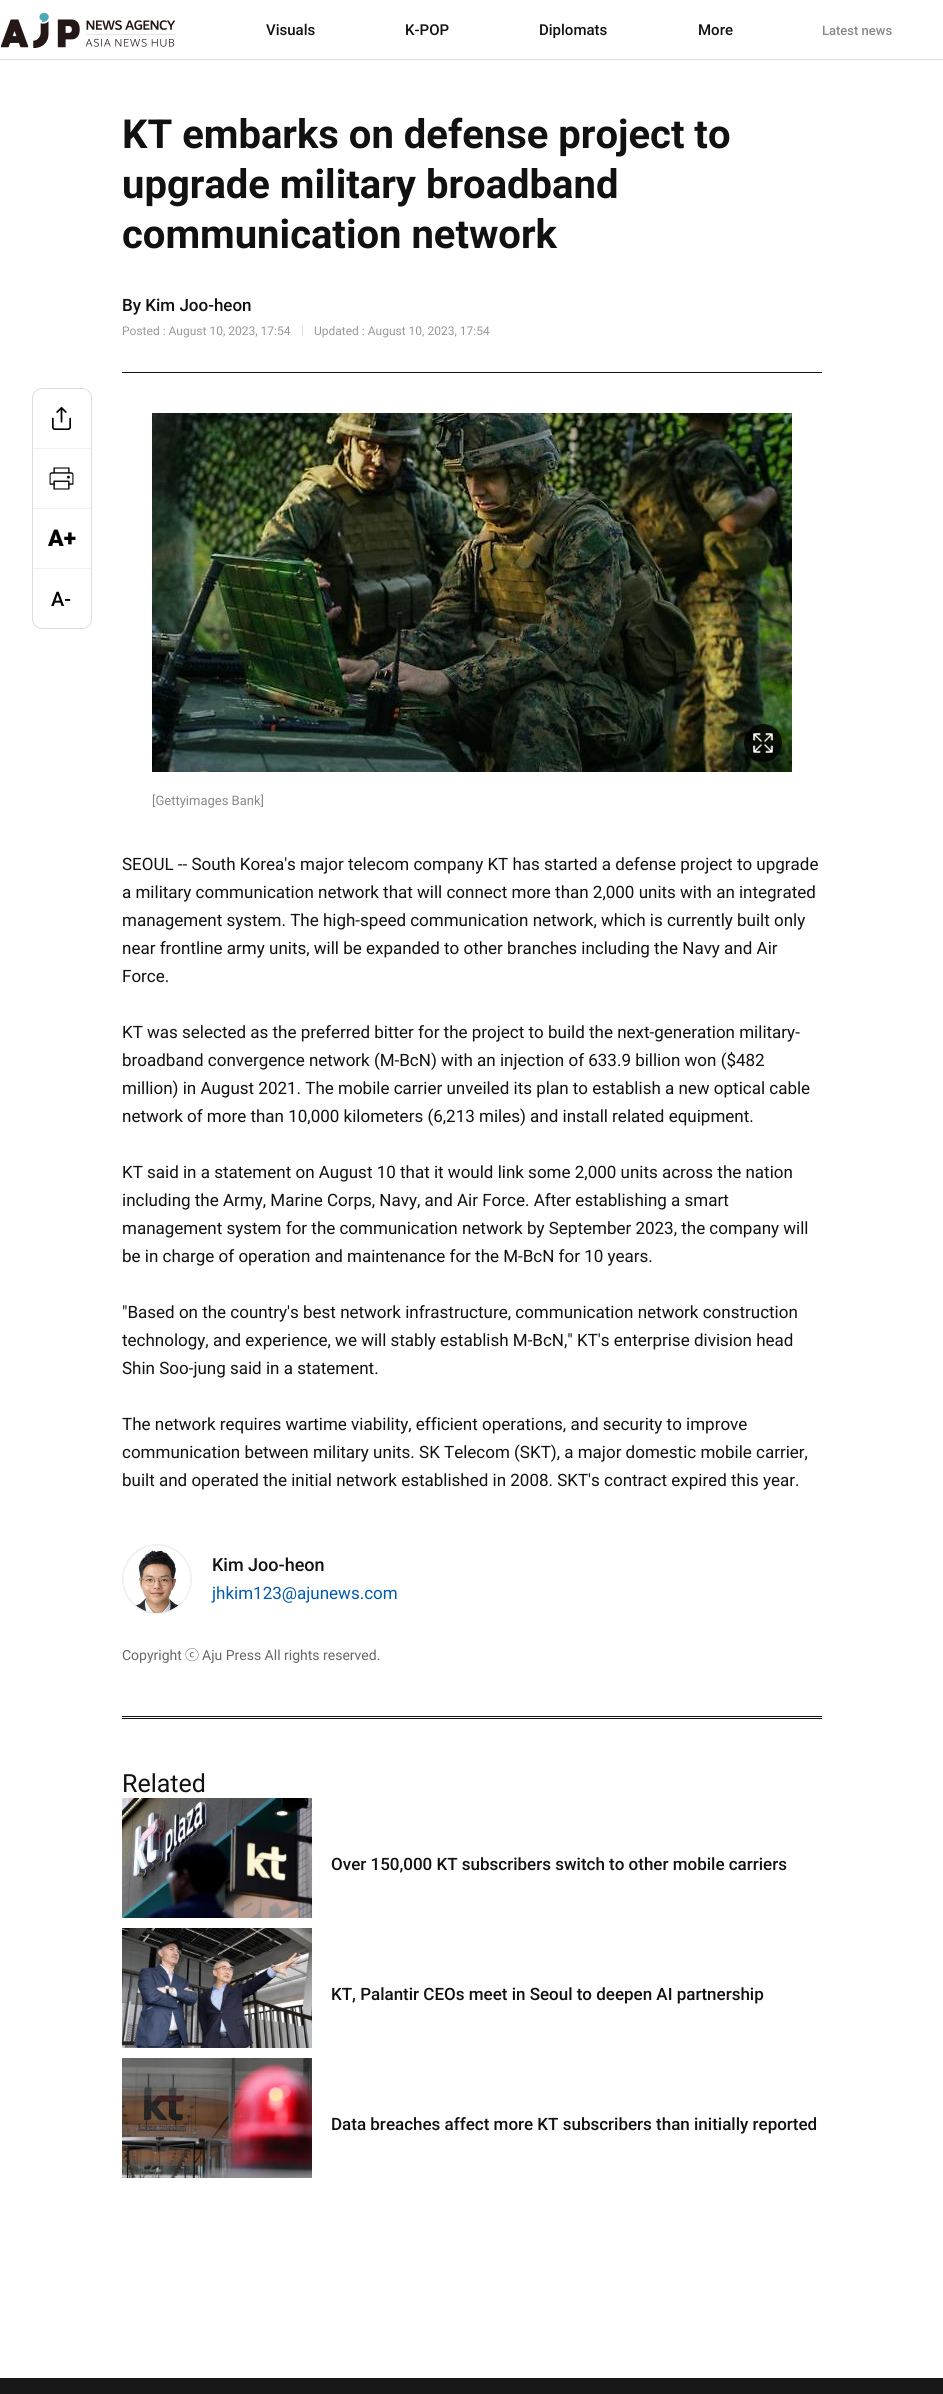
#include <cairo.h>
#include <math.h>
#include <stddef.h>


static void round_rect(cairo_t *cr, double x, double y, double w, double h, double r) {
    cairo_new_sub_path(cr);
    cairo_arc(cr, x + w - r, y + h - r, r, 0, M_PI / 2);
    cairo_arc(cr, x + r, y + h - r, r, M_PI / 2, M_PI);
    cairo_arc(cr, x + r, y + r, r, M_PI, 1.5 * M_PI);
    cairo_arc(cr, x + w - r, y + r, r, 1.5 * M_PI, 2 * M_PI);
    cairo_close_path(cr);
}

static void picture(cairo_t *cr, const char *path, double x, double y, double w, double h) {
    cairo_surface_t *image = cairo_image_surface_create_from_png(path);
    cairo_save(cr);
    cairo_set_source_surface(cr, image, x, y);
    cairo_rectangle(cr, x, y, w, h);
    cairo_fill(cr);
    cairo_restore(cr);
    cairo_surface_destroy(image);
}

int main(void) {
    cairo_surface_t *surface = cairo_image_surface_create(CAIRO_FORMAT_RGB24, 943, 2394);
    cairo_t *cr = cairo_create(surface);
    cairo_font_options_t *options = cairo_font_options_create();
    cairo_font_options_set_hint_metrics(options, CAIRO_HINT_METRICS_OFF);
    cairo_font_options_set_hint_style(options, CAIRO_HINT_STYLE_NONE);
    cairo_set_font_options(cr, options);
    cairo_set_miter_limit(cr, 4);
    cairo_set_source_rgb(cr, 1, 1, 1);
    cairo_paint(cr);
    cairo_set_source_rgb(cr, 0.875, 0.875, 0.875);
    cairo_rectangle(cr, 0, 59, 943, 1);
    cairo_fill(cr);
    picture(cr, "img1.png", 1, 13, 174, 35);
    cairo_select_font_face(cr, "Roboto Medium", CAIRO_FONT_SLANT_NORMAL, CAIRO_FONT_WEIGHT_NORMAL);
    cairo_set_font_size(cr, 15);
    cairo_set_source_rgb(cr, 0.067, 0.067, 0.067);
    cairo_move_to(cr, 266, 35);
    cairo_show_text(cr, "Visuals");
    cairo_move_to(cr, 405, 35);
    cairo_show_text(cr, "K-POP");
    cairo_move_to(cr, 539, 35);
    cairo_show_text(cr, "Diplomats");
    cairo_move_to(cr, 698, 35);
    cairo_show_text(cr, "More");
    cairo_set_font_size(cr, 13);
    cairo_set_source_rgb(cr, 0.533, 0.533, 0.533);
    cairo_move_to(cr, 822, 35);
    cairo_show_text(cr, "Latest news");
    cairo_set_source_rgb(cr, 0.067, 0.067, 0.067);
    cairo_rectangle(cr, 122, 1716, 700, 1);
    cairo_fill(cr);
    cairo_rectangle(cr, 122, 1718, 700, 1);
    cairo_fill(cr);
    round_rect(cr, 32.5, 388.5, 59, 240, 9.5);
    cairo_set_source_rgb(cr, 0.867, 0.867, 0.867);
    cairo_set_line_width(cr, 1);
    cairo_stroke(cr);
    picture(cr, "img2.png", 52, 407, 19, 23);
    cairo_set_source_rgb(cr, 0.941, 0.941, 0.941);
    cairo_rectangle(cr, 33, 448, 58, 1);
    cairo_fill(cr);
    picture(cr, "img3.png", 49, 467, 25, 23);
    cairo_rectangle(cr, 33, 508, 58, 1);
    cairo_fill(cr);
    cairo_select_font_face(cr, "Roboto Black", CAIRO_FONT_SLANT_NORMAL, CAIRO_FONT_WEIGHT_NORMAL);
    cairo_set_font_size(cr, 23);
    cairo_set_source_rgb(cr, 0, 0, 0);
    cairo_move_to(cr, 48, 546);
    cairo_show_text(cr, "A+");
    cairo_set_source_rgb(cr, 0.941, 0.941, 0.941);
    cairo_rectangle(cr, 33, 568, 58, 1);
    cairo_fill(cr);
    cairo_select_font_face(cr, "Roboto Medium", CAIRO_FONT_SLANT_NORMAL, CAIRO_FONT_WEIGHT_NORMAL);
    cairo_set_font_size(cr, 20);
    cairo_set_source_rgb(cr, 0, 0, 0);
    cairo_move_to(cr, 51, 606);
    cairo_show_text(cr, "A-");
    cairo_set_source_rgb(cr, 0.067, 0.067, 0.067);
    cairo_rectangle(cr, 122, 372, 700, 1);
    cairo_fill(cr);
    cairo_select_font_face(cr, "Roboto", CAIRO_FONT_SLANT_NORMAL, CAIRO_FONT_WEIGHT_BOLD);
    cairo_set_font_size(cr, 40);
    cairo_move_to(cr, 122, 148);
    cairo_show_text(cr, "KT embarks on defense project to");
    cairo_move_to(cr, 122, 198);
    cairo_show_text(cr, "upgrade military broadband");
    cairo_move_to(cr, 122, 248);
    cairo_show_text(cr, "communication network");
    cairo_select_font_face(cr, "Roboto Medium", CAIRO_FONT_SLANT_NORMAL, CAIRO_FONT_WEIGHT_NORMAL);
    cairo_set_font_size(cr, 17);
    cairo_move_to(cr, 122, 311);
    cairo_show_text(cr, "By Kim Joo-heon");
    cairo_select_font_face(cr, "Roboto", CAIRO_FONT_SLANT_NORMAL, CAIRO_FONT_WEIGHT_NORMAL);
    cairo_set_font_size(cr, 12);
    cairo_set_source_rgb(cr, 0.6, 0.6, 0.6);
    cairo_move_to(cr, 122, 335);
    cairo_show_text(cr, "Posted : August 10, 2023, 17:54");
    cairo_set_source_rgb(cr, 0.867, 0.867, 0.867);
    cairo_rectangle(cr, 302, 326, 1, 10);
    cairo_fill(cr);
    cairo_set_source_rgb(cr, 0.6, 0.6, 0.6);
    cairo_move_to(cr, 314, 335);
    cairo_show_text(cr, "Updated : August 10, 2023, 17:54");
    picture(cr, "img4.png", 152, 413, 640, 359);
    picture(cr, "img5.png", 744, 724, 38, 38);
    cairo_set_font_size(cr, 13);
    cairo_set_source_rgb(cr, 0.533, 0.533, 0.533);
    cairo_move_to(cr, 152, 805);
    cairo_show_text(cr, "[Gettyimages Bank]");
    cairo_set_font_size(cr, 17);
    cairo_set_source_rgb(cr, 0.067, 0.067, 0.067);
    cairo_move_to(cr, 122, 870);
    cairo_show_text(cr, "SEOUL -- South Korea's major telecom company KT has started a defense project to upgrade");
    cairo_move_to(cr, 122, 898);
    cairo_show_text(cr, "a military communication network that will connect more than 2,000 units with an integrated");
    cairo_move_to(cr, 122, 926);
    cairo_show_text(cr, "management system. The high-speed communication network, which is currently built only");
    cairo_move_to(cr, 122, 954);
    cairo_show_text(cr, "near frontline army units, will be expanded to other branches including the Navy and Air");
    cairo_move_to(cr, 122, 982);
    cairo_show_text(cr, "Force.");
    cairo_move_to(cr, 122, 1038);
    cairo_show_text(cr, "KT was selected as the preferred bitter for the project to build the next-generation military-");
    cairo_move_to(cr, 122, 1066);
    cairo_show_text(cr, "broadband convergence network (M-BcN) with an injection of 633.9 billion won ($482");
    cairo_move_to(cr, 122, 1094);
    cairo_show_text(cr, "million) in August 2021. The mobile carrier unveiled its plan to establish a new optical cable");
    cairo_move_to(cr, 122, 1122);
    cairo_show_text(cr, "network of more than 10,000 kilometers (6,213 miles) and install related equipment.");
    cairo_move_to(cr, 122, 1178);
    cairo_show_text(cr, "KT said in a statement on August 10 that it would link some 2,000 units across the nation");
    cairo_move_to(cr, 122, 1206);
    cairo_show_text(cr, "including the Army, Marine Corps, Navy, and Air Force. After establishing a smart");
    cairo_move_to(cr, 122, 1234);
    cairo_show_text(cr, "management system for the communication network by September 2023, the company will");
    cairo_move_to(cr, 122, 1262);
    cairo_show_text(cr, "be in charge of operation and maintenance for the M-BcN for 10 years.");
    cairo_move_to(cr, 122, 1318);
    cairo_show_text(cr, "\"Based on the country's best network infrastructure, communication network construction");
    cairo_move_to(cr, 122, 1346);
    cairo_show_text(cr, "technology, and experience, we will stably establish M-BcN,\" KT's enterprise division head");
    cairo_move_to(cr, 122, 1374);
    cairo_show_text(cr, "Shin Soo-jung said in a statement.");
    cairo_move_to(cr, 122, 1430);
    cairo_show_text(cr, "The network requires wartime viability, efficient operations, and security to improve");
    cairo_move_to(cr, 122, 1458);
    cairo_show_text(cr, "communication between military units. SK Telecom (SKT), a major domestic mobile carrier,");
    cairo_move_to(cr, 122, 1486);
    cairo_show_text(cr, "built and operated the initial network established in 2008. SKT's contract expired this year.");
    picture(cr, "img6.png", 133, 1601, 49, 13);
    cairo_arc(cr, 157, 1579, 34.5, 0, 2 * M_PI);
    cairo_set_source_rgb(cr, 0.933, 0.933, 0.933);
    cairo_stroke(cr);
    picture(cr, "img7.png", 123, 1545, 68, 68);
    cairo_select_font_face(cr, "Roboto Medium", CAIRO_FONT_SLANT_NORMAL, CAIRO_FONT_WEIGHT_NORMAL);
    cairo_set_font_size(cr, 18);
    cairo_set_source_rgb(cr, 0.067, 0.067, 0.067);
    cairo_move_to(cr, 212, 1571);
    cairo_show_text(cr, "Kim Joo-heon");
    cairo_select_font_face(cr, "Roboto", CAIRO_FONT_SLANT_NORMAL, CAIRO_FONT_WEIGHT_NORMAL);
    cairo_set_font_size(cr, 17);
    cairo_set_source_rgb(cr, 0, 0.357, 0.675);
    cairo_move_to(cr, 212, 1599);
    cairo_show_text(cr, "jhkim123@ajunews.com");
    cairo_set_font_size(cr, 14);
    cairo_set_source_rgb(cr, 0.4, 0.4, 0.4);
    cairo_move_to(cr, 122, 1660);
    cairo_show_text(cr, "Copyright");
    cairo_select_font_face(cr, "Noto Sans KR", CAIRO_FONT_SLANT_NORMAL, CAIRO_FONT_WEIGHT_NORMAL);
    cairo_move_to(cr, 185, 1660);
    cairo_show_text(cr, "ⓒ");
    cairo_select_font_face(cr, "Roboto", CAIRO_FONT_SLANT_NORMAL, CAIRO_FONT_WEIGHT_NORMAL);
    cairo_move_to(cr, 202, 1660);
    cairo_show_text(cr, "Aju Press All rights reserved.");
    cairo_set_font_size(cr, 25);
    cairo_set_source_rgb(cr, 0.067, 0.067, 0.067);
    cairo_move_to(cr, 122, 1792);
    cairo_show_text(cr, "Related");
    picture(cr, "img8.png", 122, 1798, 190, 120);
    cairo_select_font_face(cr, "Roboto Medium", CAIRO_FONT_SLANT_NORMAL, CAIRO_FONT_WEIGHT_NORMAL);
    cairo_set_font_size(cr, 17);
    cairo_move_to(cr, 331, 1870);
    cairo_show_text(cr, "Over 150,000 KT subscribers switch to other mobile carriers");
    picture(cr, "img9.png", 122, 1928, 190, 120);
    cairo_move_to(cr, 331, 2000);
    cairo_show_text(cr, "KT, Palantir CEOs meet in Seoul to deepen AI partnership");
    picture(cr, "img10.png", 122, 2058, 190, 120);
    cairo_move_to(cr, 331, 2130);
    cairo_show_text(cr, "Data breaches affect more KT subscribers than initially reported");
    cairo_set_source_rgb(cr, 0.094, 0.094, 0.094);
    cairo_rectangle(cr, 0, 2378, 943, 16);
    cairo_fill(cr);
    cairo_surface_write_to_png(surface, "page.png");
    cairo_font_options_destroy(options);
    cairo_destroy(cr);
    cairo_surface_destroy(surface);
    return 0;
}
